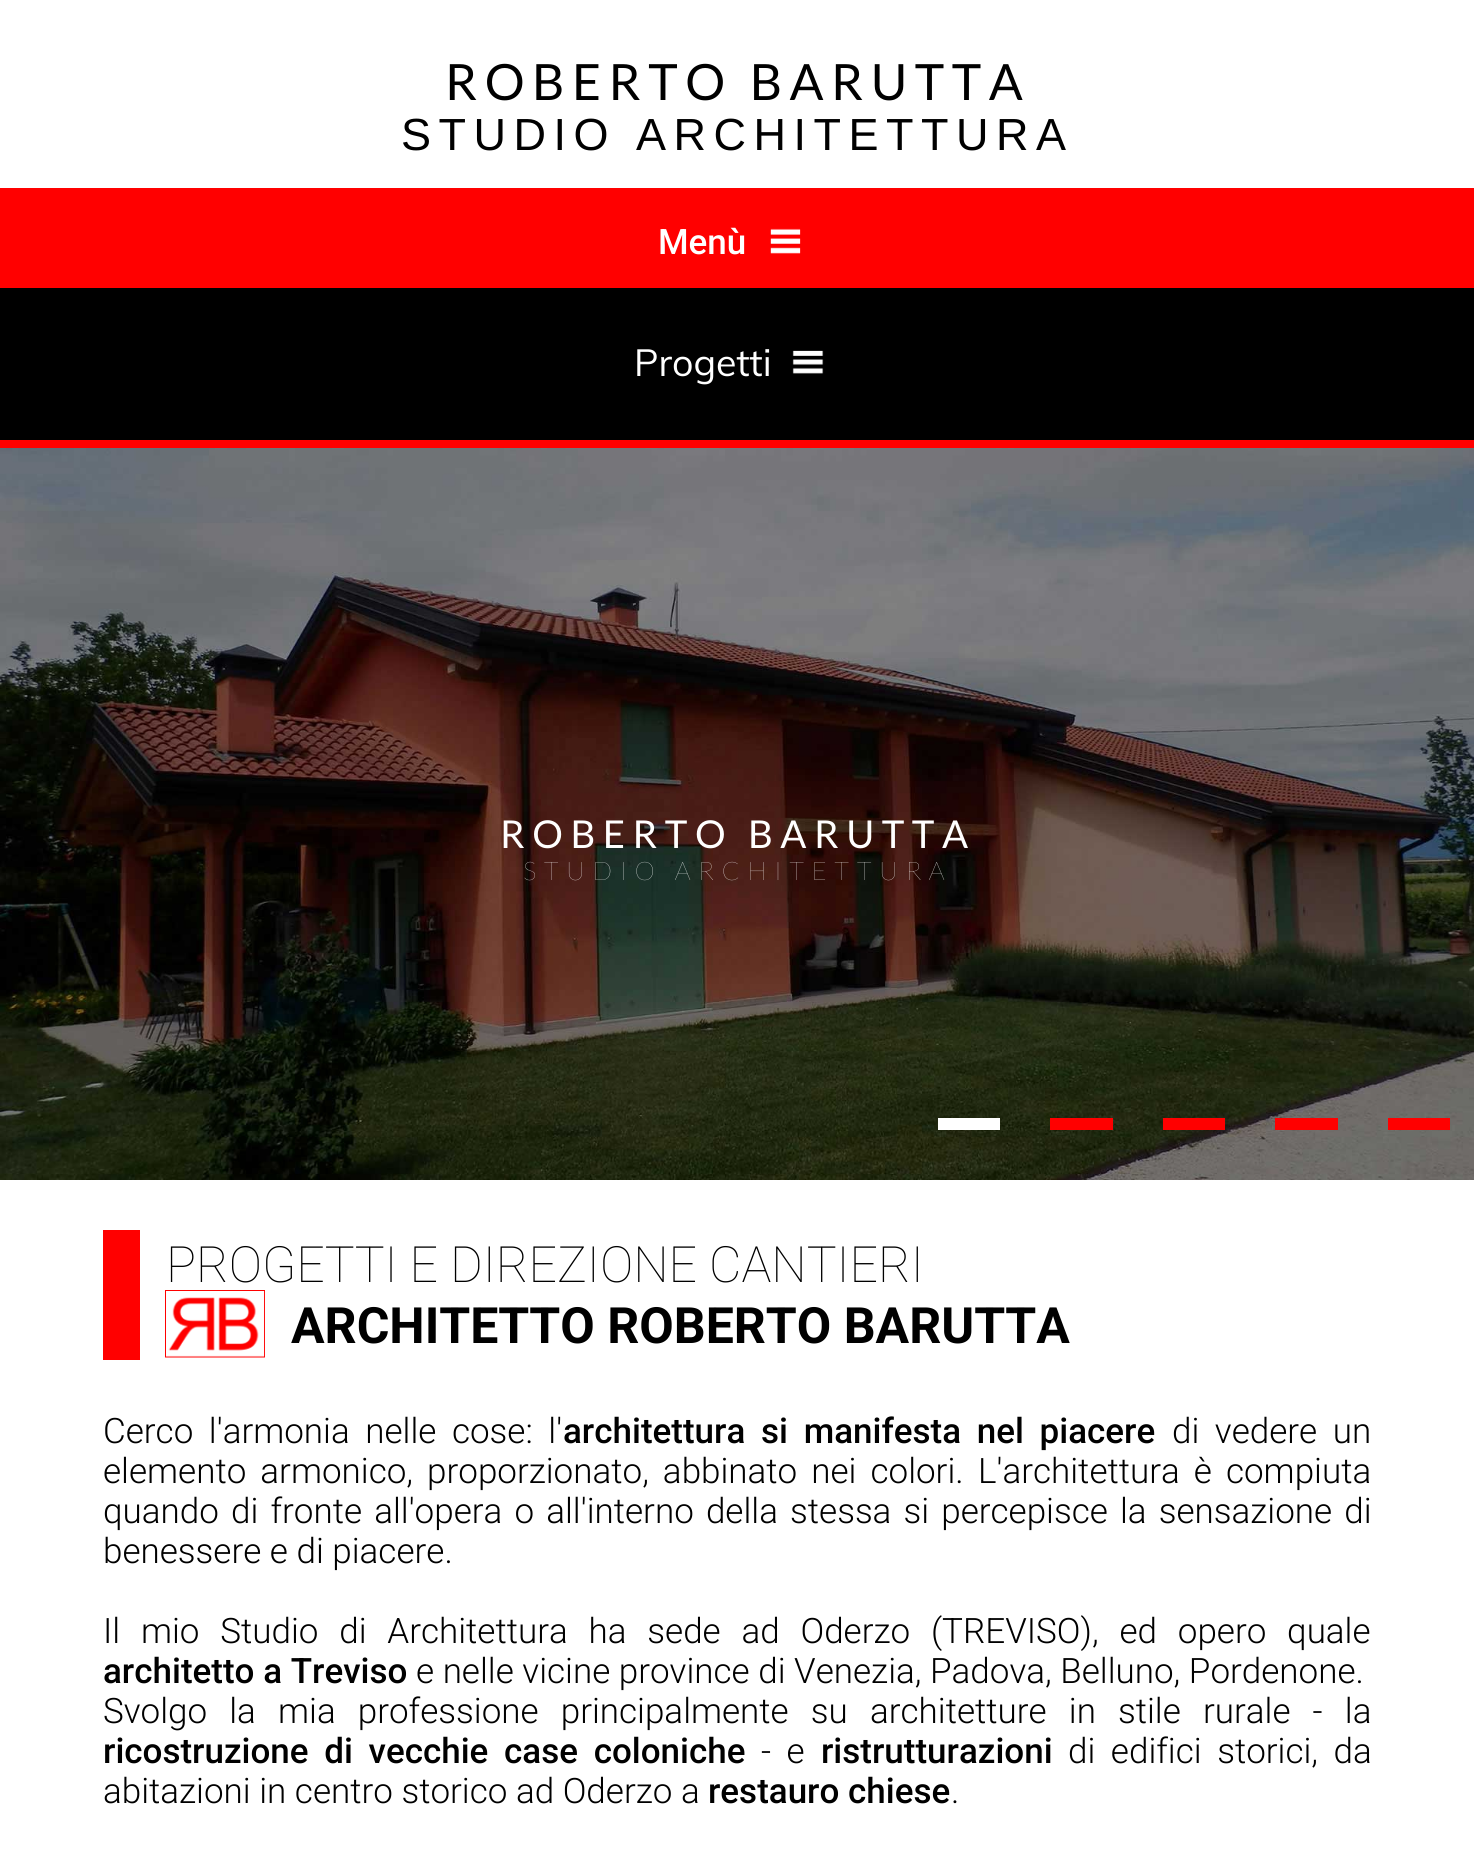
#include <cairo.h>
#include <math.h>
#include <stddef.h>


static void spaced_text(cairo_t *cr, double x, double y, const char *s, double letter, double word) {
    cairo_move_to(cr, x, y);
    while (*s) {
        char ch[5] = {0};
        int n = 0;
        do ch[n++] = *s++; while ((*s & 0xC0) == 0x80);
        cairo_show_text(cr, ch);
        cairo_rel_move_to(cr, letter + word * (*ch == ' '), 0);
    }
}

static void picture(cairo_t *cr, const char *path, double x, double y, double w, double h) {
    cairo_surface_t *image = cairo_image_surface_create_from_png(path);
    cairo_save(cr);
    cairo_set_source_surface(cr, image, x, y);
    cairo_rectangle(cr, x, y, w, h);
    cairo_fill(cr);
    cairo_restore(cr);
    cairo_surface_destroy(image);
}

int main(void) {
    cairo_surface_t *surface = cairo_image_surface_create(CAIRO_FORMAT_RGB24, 1474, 1876);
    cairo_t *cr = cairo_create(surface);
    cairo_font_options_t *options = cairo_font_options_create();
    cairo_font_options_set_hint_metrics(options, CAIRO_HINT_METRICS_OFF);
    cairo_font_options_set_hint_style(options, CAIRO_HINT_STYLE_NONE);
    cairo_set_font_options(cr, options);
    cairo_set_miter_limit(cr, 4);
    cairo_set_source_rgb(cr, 1, 1, 1);
    cairo_paint(cr);
    cairo_select_font_face(cr, "Lato", CAIRO_FONT_SLANT_NORMAL, CAIRO_FONT_WEIGHT_NORMAL);
    cairo_set_font_size(cr, 50);
    cairo_set_source_rgb(cr, 0, 0, 0);
    spaced_text(cr, 445, 100, "ROBERTO BARUTTA", 7.5, 0);
    cairo_select_font_face(cr, "Liberation Sans", CAIRO_FONT_SLANT_NORMAL, CAIRO_FONT_WEIGHT_NORMAL);
    cairo_set_font_size(cr, 45);
    spaced_text(cr, 401, 150, "STUDIO ARCHITETTURA", 7.5, 0);
    cairo_set_source_rgb(cr, 1, 0, 0);
    cairo_rectangle(cr, 0, 188, 1474, 100);
    cairo_fill(cr);
    cairo_select_font_face(cr, "Roboto Medium", CAIRO_FONT_SLANT_NORMAL, CAIRO_FONT_WEIGHT_NORMAL);
    cairo_set_font_size(cr, 35);
    cairo_set_source_rgb(cr, 1, 1, 1);
    cairo_move_to(cr, 658, 254);
    cairo_show_text(cr, "Menù");
    picture(cr, "img1.png", 770, 228, 31, 26);
    cairo_set_source_rgb(cr, 0, 0, 0);
    cairo_rectangle(cr, 0, 288, 1474, 152);
    cairo_fill(cr);
    cairo_set_source_rgb(cr, 1, 0, 0);
    cairo_rectangle(cr, 0, 440, 1474, 8);
    cairo_fill(cr);
    cairo_select_font_face(cr, "Muli", CAIRO_FONT_SLANT_NORMAL, CAIRO_FONT_WEIGHT_NORMAL);
    cairo_set_font_size(cr, 37.5);
    cairo_set_source_rgb(cr, 1, 1, 1);
    cairo_move_to(cr, 634, 376);
    cairo_show_text(cr, "Progetti");
    picture(cr, "img2.png", 792, 350, 32, 24);
    picture(cr, "img3.png", 0, 448, 1474, 732);
    cairo_select_font_face(cr, "Lato", CAIRO_FONT_SLANT_NORMAL, CAIRO_FONT_WEIGHT_NORMAL);
    cairo_set_font_size(cr, 38.4);
    spaced_text(cr, 500, 848, "ROBERTO BARUTTA", 7.5, 0);
    cairo_select_font_face(cr, "Lato Thin", CAIRO_FONT_SLANT_NORMAL, CAIRO_FONT_WEIGHT_NORMAL);
    cairo_set_font_size(cr, 25.6);
    spaced_text(cr, 523, 880, "STUDIO ARCHITETTURA", 7.5, 0);
    cairo_rectangle(cr, 938, 1118, 62, 12);
    cairo_fill(cr);
    cairo_set_source_rgb(cr, 1, 0, 0);
    cairo_rectangle(cr, 1050, 1118, 63, 12);
    cairo_fill(cr);
    cairo_rectangle(cr, 1163, 1118, 62, 12);
    cairo_fill(cr);
    cairo_rectangle(cr, 1275, 1118, 63, 12);
    cairo_fill(cr);
    cairo_rectangle(cr, 1388, 1118, 62, 12);
    cairo_fill(cr);
    cairo_rectangle(cr, 103, 1230, 37, 130);
    cairo_fill(cr);
    cairo_select_font_face(cr, "Roboto Thin", CAIRO_FONT_SLANT_NORMAL, CAIRO_FONT_WEIGHT_NORMAL);
    cairo_set_font_size(cr, 50);
    cairo_set_source_rgb(cr, 0, 0, 0);
    cairo_move_to(cr, 166, 1282);
    cairo_show_text(cr, "PROGETTI E DIREZIONE CANTIERI");
    picture(cr, "img4.png", 165, 1290, 100, 68);
    cairo_select_font_face(cr, "Roboto", CAIRO_FONT_SLANT_NORMAL, CAIRO_FONT_WEIGHT_BOLD);
    cairo_move_to(cr, 291, 1343);
    cairo_show_text(cr, "ARCHITETTO ROBERTO BARUTTA");
    cairo_select_font_face(cr, "Roboto Light", CAIRO_FONT_SLANT_NORMAL, CAIRO_FONT_WEIGHT_NORMAL);
    cairo_set_font_size(cr, 35);
    spaced_text(cr, 103, 1443, "Cerco l'armonia nelle cose: l'", 0, 7);
    cairo_select_font_face(cr, "Roboto Medium", CAIRO_FONT_SLANT_NORMAL, CAIRO_FONT_WEIGHT_NORMAL);
    spaced_text(cr, 563, 1443, "architettura si manifesta nel piacere", 0, 7);
    cairo_select_font_face(cr, "Roboto Light", CAIRO_FONT_SLANT_NORMAL, CAIRO_FONT_WEIGHT_NORMAL);
    spaced_text(cr, 1172, 1443, "di vedere un", 0, 7);
    spaced_text(cr, 103, 1483, "elemento armonico, proporzionato, abbinato nei colori.", 0, 5.5);
    spaced_text(cr, 978, 1483, "L'architettura è compiuta", 0, 5.5);
    spaced_text(cr, 103, 1523, "quando di fronte all'opera o all'interno della stessa si percepisce la sensazione di", 0, 3.6);
    cairo_move_to(cr, 103, 1563);
    cairo_show_text(cr, "benessere e di piacere.");
    spaced_text(cr, 103, 1643, "Il mio Studio di Architettura ha sede ad Oderzo (TREVISO), ed opero quale", 0, 12.25);
    cairo_select_font_face(cr, "Roboto Medium", CAIRO_FONT_SLANT_NORMAL, CAIRO_FONT_WEIGHT_NORMAL);
    cairo_move_to(cr, 103, 1683);
    cairo_show_text(cr, "architetto a Treviso");
    cairo_select_font_face(cr, "Roboto Light", CAIRO_FONT_SLANT_NORMAL, CAIRO_FONT_WEIGHT_NORMAL);
    cairo_move_to(cr, 416, 1683);
    cairo_show_text(cr, "e nelle vicine province di Venezia, Padova, Belluno, Pordenone.");
    spaced_text(cr, 103, 1723, "Svolgo la mia professione principalmente su architetture in stile rurale - la", 0, 13.6);
    cairo_select_font_face(cr, "Roboto Medium", CAIRO_FONT_SLANT_NORMAL, CAIRO_FONT_WEIGHT_NORMAL);
    spaced_text(cr, 103, 1763, "ricostruzione di vecchie case coloniche", 0, 7);
    cairo_select_font_face(cr, "Roboto Light", CAIRO_FONT_SLANT_NORMAL, CAIRO_FONT_WEIGHT_NORMAL);
    spaced_text(cr, 761, 1763, "- e", 0, 7);
    cairo_select_font_face(cr, "Roboto Medium", CAIRO_FONT_SLANT_NORMAL, CAIRO_FONT_WEIGHT_NORMAL);
    cairo_move_to(cr, 821, 1763);
    cairo_show_text(cr, "ristrutturazioni");
    cairo_select_font_face(cr, "Roboto Light", CAIRO_FONT_SLANT_NORMAL, CAIRO_FONT_WEIGHT_NORMAL);
    spaced_text(cr, 1068, 1763, "di edifici storici, da", 0, 7);
    cairo_move_to(cr, 103, 1803);
    cairo_show_text(cr, "abitazioni in centro storico ad Oderzo a");
    cairo_select_font_face(cr, "Roboto Medium", CAIRO_FONT_SLANT_NORMAL, CAIRO_FONT_WEIGHT_NORMAL);
    cairo_move_to(cr, 708, 1803);
    cairo_show_text(cr, "restauro chiese");
    cairo_select_font_face(cr, "Roboto Light", CAIRO_FONT_SLANT_NORMAL, CAIRO_FONT_WEIGHT_NORMAL);
    cairo_move_to(cr, 951, 1803);
    cairo_show_text(cr, ".");
    cairo_surface_write_to_png(surface, "page.png");
    cairo_font_options_destroy(options);
    cairo_destroy(cr);
    cairo_surface_destroy(surface);
    return 0;
}
